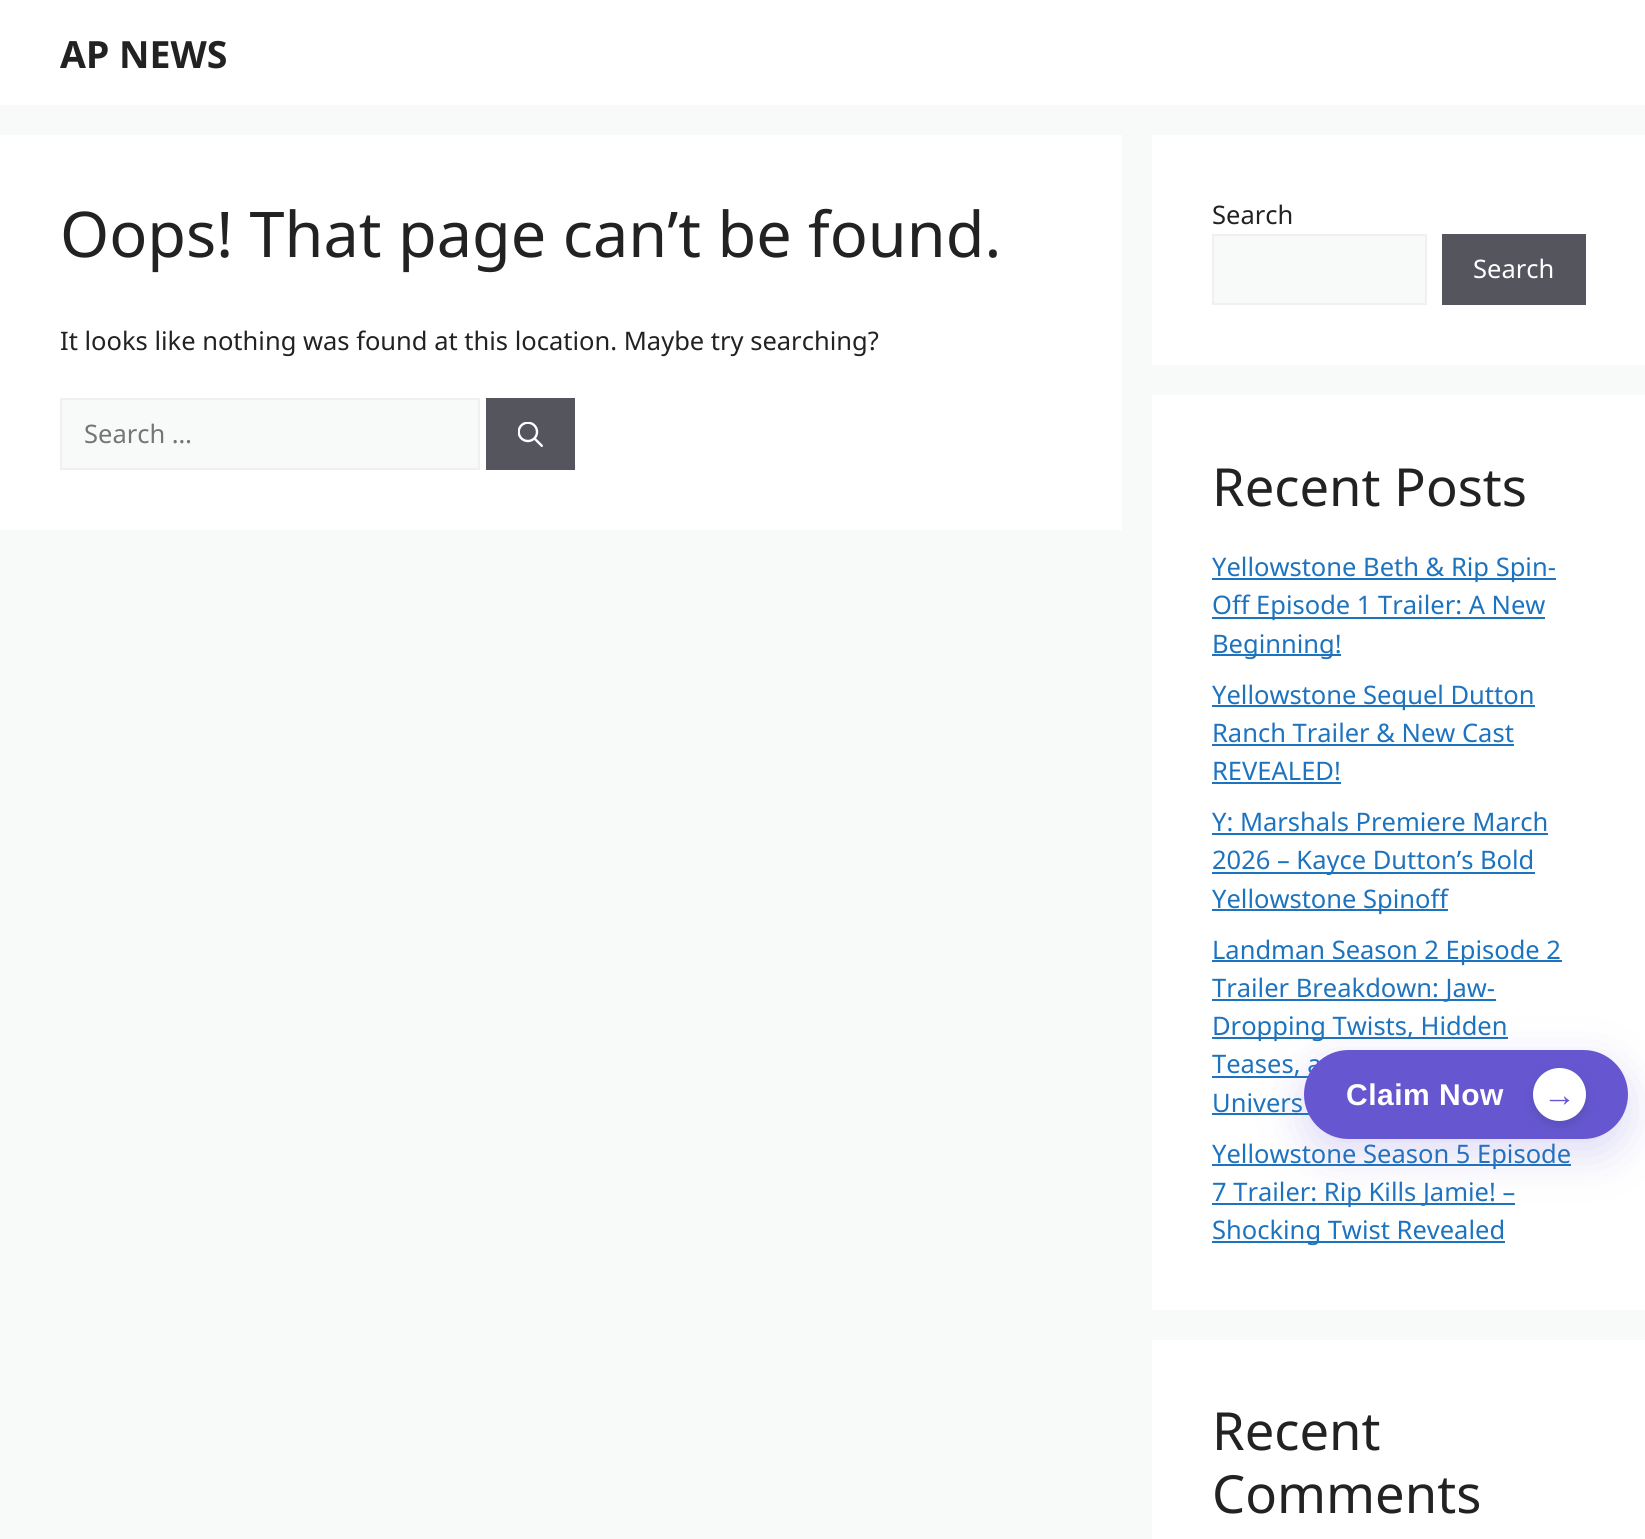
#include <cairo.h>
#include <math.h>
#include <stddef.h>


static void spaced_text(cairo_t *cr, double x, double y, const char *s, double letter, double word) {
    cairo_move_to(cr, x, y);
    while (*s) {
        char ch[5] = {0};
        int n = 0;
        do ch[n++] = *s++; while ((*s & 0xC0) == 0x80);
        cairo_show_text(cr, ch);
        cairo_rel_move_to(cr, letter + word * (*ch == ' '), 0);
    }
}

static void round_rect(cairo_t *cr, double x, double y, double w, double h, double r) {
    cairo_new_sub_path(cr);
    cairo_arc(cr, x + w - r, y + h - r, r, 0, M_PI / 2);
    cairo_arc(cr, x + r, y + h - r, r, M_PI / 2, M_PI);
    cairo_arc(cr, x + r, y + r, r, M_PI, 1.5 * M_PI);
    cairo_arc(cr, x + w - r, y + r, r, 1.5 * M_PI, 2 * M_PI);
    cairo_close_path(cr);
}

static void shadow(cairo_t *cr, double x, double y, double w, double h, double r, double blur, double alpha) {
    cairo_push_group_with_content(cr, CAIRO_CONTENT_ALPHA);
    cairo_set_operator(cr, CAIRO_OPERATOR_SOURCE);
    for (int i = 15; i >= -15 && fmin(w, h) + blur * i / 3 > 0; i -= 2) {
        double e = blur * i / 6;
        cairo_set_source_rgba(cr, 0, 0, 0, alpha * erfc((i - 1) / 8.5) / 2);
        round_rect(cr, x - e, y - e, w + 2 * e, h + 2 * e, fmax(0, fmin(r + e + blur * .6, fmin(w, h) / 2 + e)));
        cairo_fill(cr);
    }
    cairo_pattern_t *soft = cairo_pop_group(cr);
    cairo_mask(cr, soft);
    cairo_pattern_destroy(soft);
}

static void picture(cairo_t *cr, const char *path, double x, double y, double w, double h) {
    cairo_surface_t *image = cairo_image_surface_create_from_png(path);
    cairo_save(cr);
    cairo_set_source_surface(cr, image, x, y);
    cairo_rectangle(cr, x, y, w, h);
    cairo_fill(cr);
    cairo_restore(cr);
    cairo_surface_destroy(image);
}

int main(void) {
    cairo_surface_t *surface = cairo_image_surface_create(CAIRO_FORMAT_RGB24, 1645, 1539);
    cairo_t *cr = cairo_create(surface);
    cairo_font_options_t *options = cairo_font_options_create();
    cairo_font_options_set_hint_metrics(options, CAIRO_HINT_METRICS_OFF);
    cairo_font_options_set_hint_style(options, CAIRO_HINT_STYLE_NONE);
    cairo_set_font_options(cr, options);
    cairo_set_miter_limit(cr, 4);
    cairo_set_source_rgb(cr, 0.969, 0.973, 0.976);
    cairo_paint(cr);
    cairo_set_source_rgb(cr, 1, 1, 1);
    cairo_rectangle(cr, 0, 0, 1645, 105);
    cairo_fill(cr);
    cairo_select_font_face(cr, "Noto Sans", CAIRO_FONT_SLANT_NORMAL, CAIRO_FONT_WEIGHT_BOLD);
    cairo_set_font_size(cr, 37.5);
    cairo_set_source_rgb(cr, 0.133, 0.133, 0.133);
    cairo_move_to(cr, 60, 68);
    cairo_show_text(cr, "AP NEWS");
    cairo_set_source_rgb(cr, 1, 1, 1);
    cairo_rectangle(cr, 0, 135, 1122, 395);
    cairo_fill(cr);
    cairo_select_font_face(cr, "Noto Sans", CAIRO_FONT_SLANT_NORMAL, CAIRO_FONT_WEIGHT_NORMAL);
    cairo_set_font_size(cr, 63);
    cairo_set_source_rgb(cr, 0.133, 0.133, 0.133);
    cairo_move_to(cr, 60, 257);
    cairo_show_text(cr, "Oops! That page can’t be found.");
    cairo_set_font_size(cr, 25.5);
    cairo_move_to(cr, 60, 350);
    cairo_show_text(cr, "It looks like nothing was found at this location. Maybe try searching?");
    cairo_set_source_rgb(cr, 0.969, 0.973, 0.976);
    cairo_rectangle(cr, 61, 399, 418, 70);
    cairo_fill_preserve(cr);
    cairo_set_source_rgb(cr, 0.941, 0.941, 0.941);
    cairo_stroke(cr);
    cairo_set_source_rgb(cr, 0.459, 0.459, 0.459);
    cairo_move_to(cr, 84, 443);
    cairo_show_text(cr, "Search …");
    cairo_set_source_rgb(cr, 0.333, 0.333, 0.369);
    cairo_rectangle(cr, 486, 398, 89, 72);
    cairo_fill(cr);
    picture(cr, "img1.png", 518, 422, 25, 25);
    cairo_set_source_rgb(cr, 1, 1, 1);
    cairo_rectangle(cr, 1152, 135, 493, 230);
    cairo_fill(cr);
    cairo_set_source_rgb(cr, 0.133, 0.133, 0.133);
    cairo_move_to(cr, 1212, 224);
    cairo_show_text(cr, "Search");
    cairo_set_source_rgb(cr, 0.969, 0.973, 0.976);
    cairo_rectangle(cr, 1213, 235, 213, 69);
    cairo_fill_preserve(cr);
    cairo_set_source_rgb(cr, 0.941, 0.941, 0.941);
    cairo_stroke(cr);
    cairo_set_source_rgb(cr, 0.333, 0.333, 0.369);
    cairo_rectangle(cr, 1442, 234, 144, 71);
    cairo_fill(cr);
    cairo_set_source_rgb(cr, 1, 1, 1);
    cairo_move_to(cr, 1473, 278);
    cairo_show_text(cr, "Search");
    cairo_rectangle(cr, 1152, 395, 493, 915);
    cairo_fill(cr);
    cairo_set_font_size(cr, 52.5);
    cairo_set_source_rgb(cr, 0.133, 0.133, 0.133);
    cairo_move_to(cr, 1212, 506);
    cairo_show_text(cr, "Recent Posts");
    cairo_set_source_rgb(cr, 0.118, 0.451, 0.745);
    cairo_rectangle(cr, 1212, 578, 344, 2);
    cairo_fill(cr);
    cairo_set_font_size(cr, 25.5);
    cairo_move_to(cr, 1212, 576);
    cairo_show_text(cr, "Yellowstone Beth & Rip Spin-");
    cairo_rectangle(cr, 1212, 617, 333, 2);
    cairo_fill(cr);
    cairo_move_to(cr, 1212, 614);
    cairo_show_text(cr, "Off Episode 1 Trailer: A New");
    cairo_rectangle(cr, 1212, 654, 129, 2);
    cairo_fill(cr);
    cairo_move_to(cr, 1212, 653);
    cairo_show_text(cr, "Beginning!");
    cairo_rectangle(cr, 1212, 705, 323, 2);
    cairo_fill(cr);
    cairo_move_to(cr, 1212, 704);
    cairo_show_text(cr, "Yellowstone Sequel Dutton");
    cairo_move_to(cr, 1212, 742);
    cairo_show_text(cr, "Ranch Trailer & New Cast");
    cairo_rectangle(cr, 1212, 744, 302, 2);
    cairo_fill(cr);
    cairo_move_to(cr, 1212, 780);
    cairo_show_text(cr, "REVEALED!");
    cairo_rectangle(cr, 1212, 782, 129, 2);
    cairo_fill(cr);
    cairo_move_to(cr, 1212, 831);
    cairo_show_text(cr, "Y: Marshals Premiere March");
    cairo_rectangle(cr, 1212, 833, 336, 2);
    cairo_fill(cr);
    cairo_rectangle(cr, 1212, 872, 323, 2);
    cairo_fill(cr);
    cairo_move_to(cr, 1212, 869);
    cairo_show_text(cr, "2026 – Kayce Dutton’s Bold");
    cairo_rectangle(cr, 1212, 909, 236, 2);
    cairo_fill(cr);
    cairo_move_to(cr, 1212, 908);
    cairo_show_text(cr, "Yellowstone Spinoff");
    cairo_rectangle(cr, 1212, 960, 350, 2);
    cairo_fill(cr);
    cairo_move_to(cr, 1212, 959);
    cairo_show_text(cr, "Landman Season 2 Episode 2");
    cairo_rectangle(cr, 1212, 999, 284, 2);
    cairo_fill(cr);
    cairo_move_to(cr, 1212, 997);
    cairo_show_text(cr, "Trailer Breakdown: Jaw-");
    cairo_rectangle(cr, 1212, 1037, 296, 2);
    cairo_fill(cr);
    cairo_move_to(cr, 1212, 1035);
    cairo_show_text(cr, "Dropping Twists, Hidden");
    cairo_rectangle(cr, 1212, 1076, 96, 2);
    cairo_fill(cr);
    cairo_move_to(cr, 1212, 1073);
    cairo_show_text(cr, "Teases, a");
    cairo_move_to(cr, 1212, 1112);
    cairo_show_text(cr, "Univers");
    cairo_rectangle(cr, 1212, 1113, 97, 2);
    cairo_fill(cr);
    cairo_rectangle(cr, 1212, 1164, 359, 2);
    cairo_fill(cr);
    cairo_move_to(cr, 1212, 1163);
    cairo_show_text(cr, "Yellowstone Season 5 Episode");
    cairo_rectangle(cr, 1212, 1203, 303, 2);
    cairo_fill(cr);
    cairo_move_to(cr, 1212, 1201);
    cairo_show_text(cr, "7 Trailer: Rip Kills Jamie! –");
    cairo_rectangle(cr, 1212, 1241, 293, 2);
    cairo_fill(cr);
    cairo_move_to(cr, 1212, 1239);
    cairo_show_text(cr, "Shocking Twist Revealed");
    cairo_set_source_rgb(cr, 1, 1, 1);
    cairo_rectangle(cr, 1152, 1340, 493, 199);
    cairo_fill(cr);
    cairo_set_font_size(cr, 52.5);
    cairo_set_source_rgb(cr, 0.133, 0.133, 0.133);
    cairo_move_to(cr, 1212, 1450);
    cairo_show_text(cr, "Recent");
    cairo_move_to(cr, 1212, 1513);
    cairo_show_text(cr, "Comments");
    cairo_set_source_rgb(cr, 0.4, 0.341, 0.82);
    shadow(cr, 1304, 1065, 324, 89, 44.5, 22.5, 0.22);
    cairo_set_source_rgb(cr, 0.4, 0.341, 0.82);
    round_rect(cr, 1304, 1050, 324, 89, 44.5);
    cairo_fill(cr);
    cairo_select_font_face(cr, "Liberation Sans", CAIRO_FONT_SLANT_NORMAL, CAIRO_FONT_WEIGHT_BOLD);
    cairo_set_font_size(cr, 30);
    cairo_set_source_rgb(cr, 1, 1, 1);
    spaced_text(cr, 1346, 1105, "Claim Now", 0.5, 0);
    cairo_set_source_rgb(cr, 0, 0, 0);
    shadow(cr, 1533, 1073, 53, 52, 26, 6, 0.12);
    cairo_set_source_rgb(cr, 1, 1, 1);
    cairo_arc(cr, 1559.5, 1094.5, 26.5, 0, 2 * M_PI);
    cairo_fill(cr);
    cairo_set_font_size(cr, 33);
    cairo_set_source_rgb(cr, 0.4, 0.341, 0.82);
    cairo_move_to(cr, 1543, 1106);
    cairo_show_text(cr, "→");
    cairo_surface_write_to_png(surface, "page.png");
    cairo_font_options_destroy(options);
    cairo_destroy(cr);
    cairo_surface_destroy(surface);
    return 0;
}
